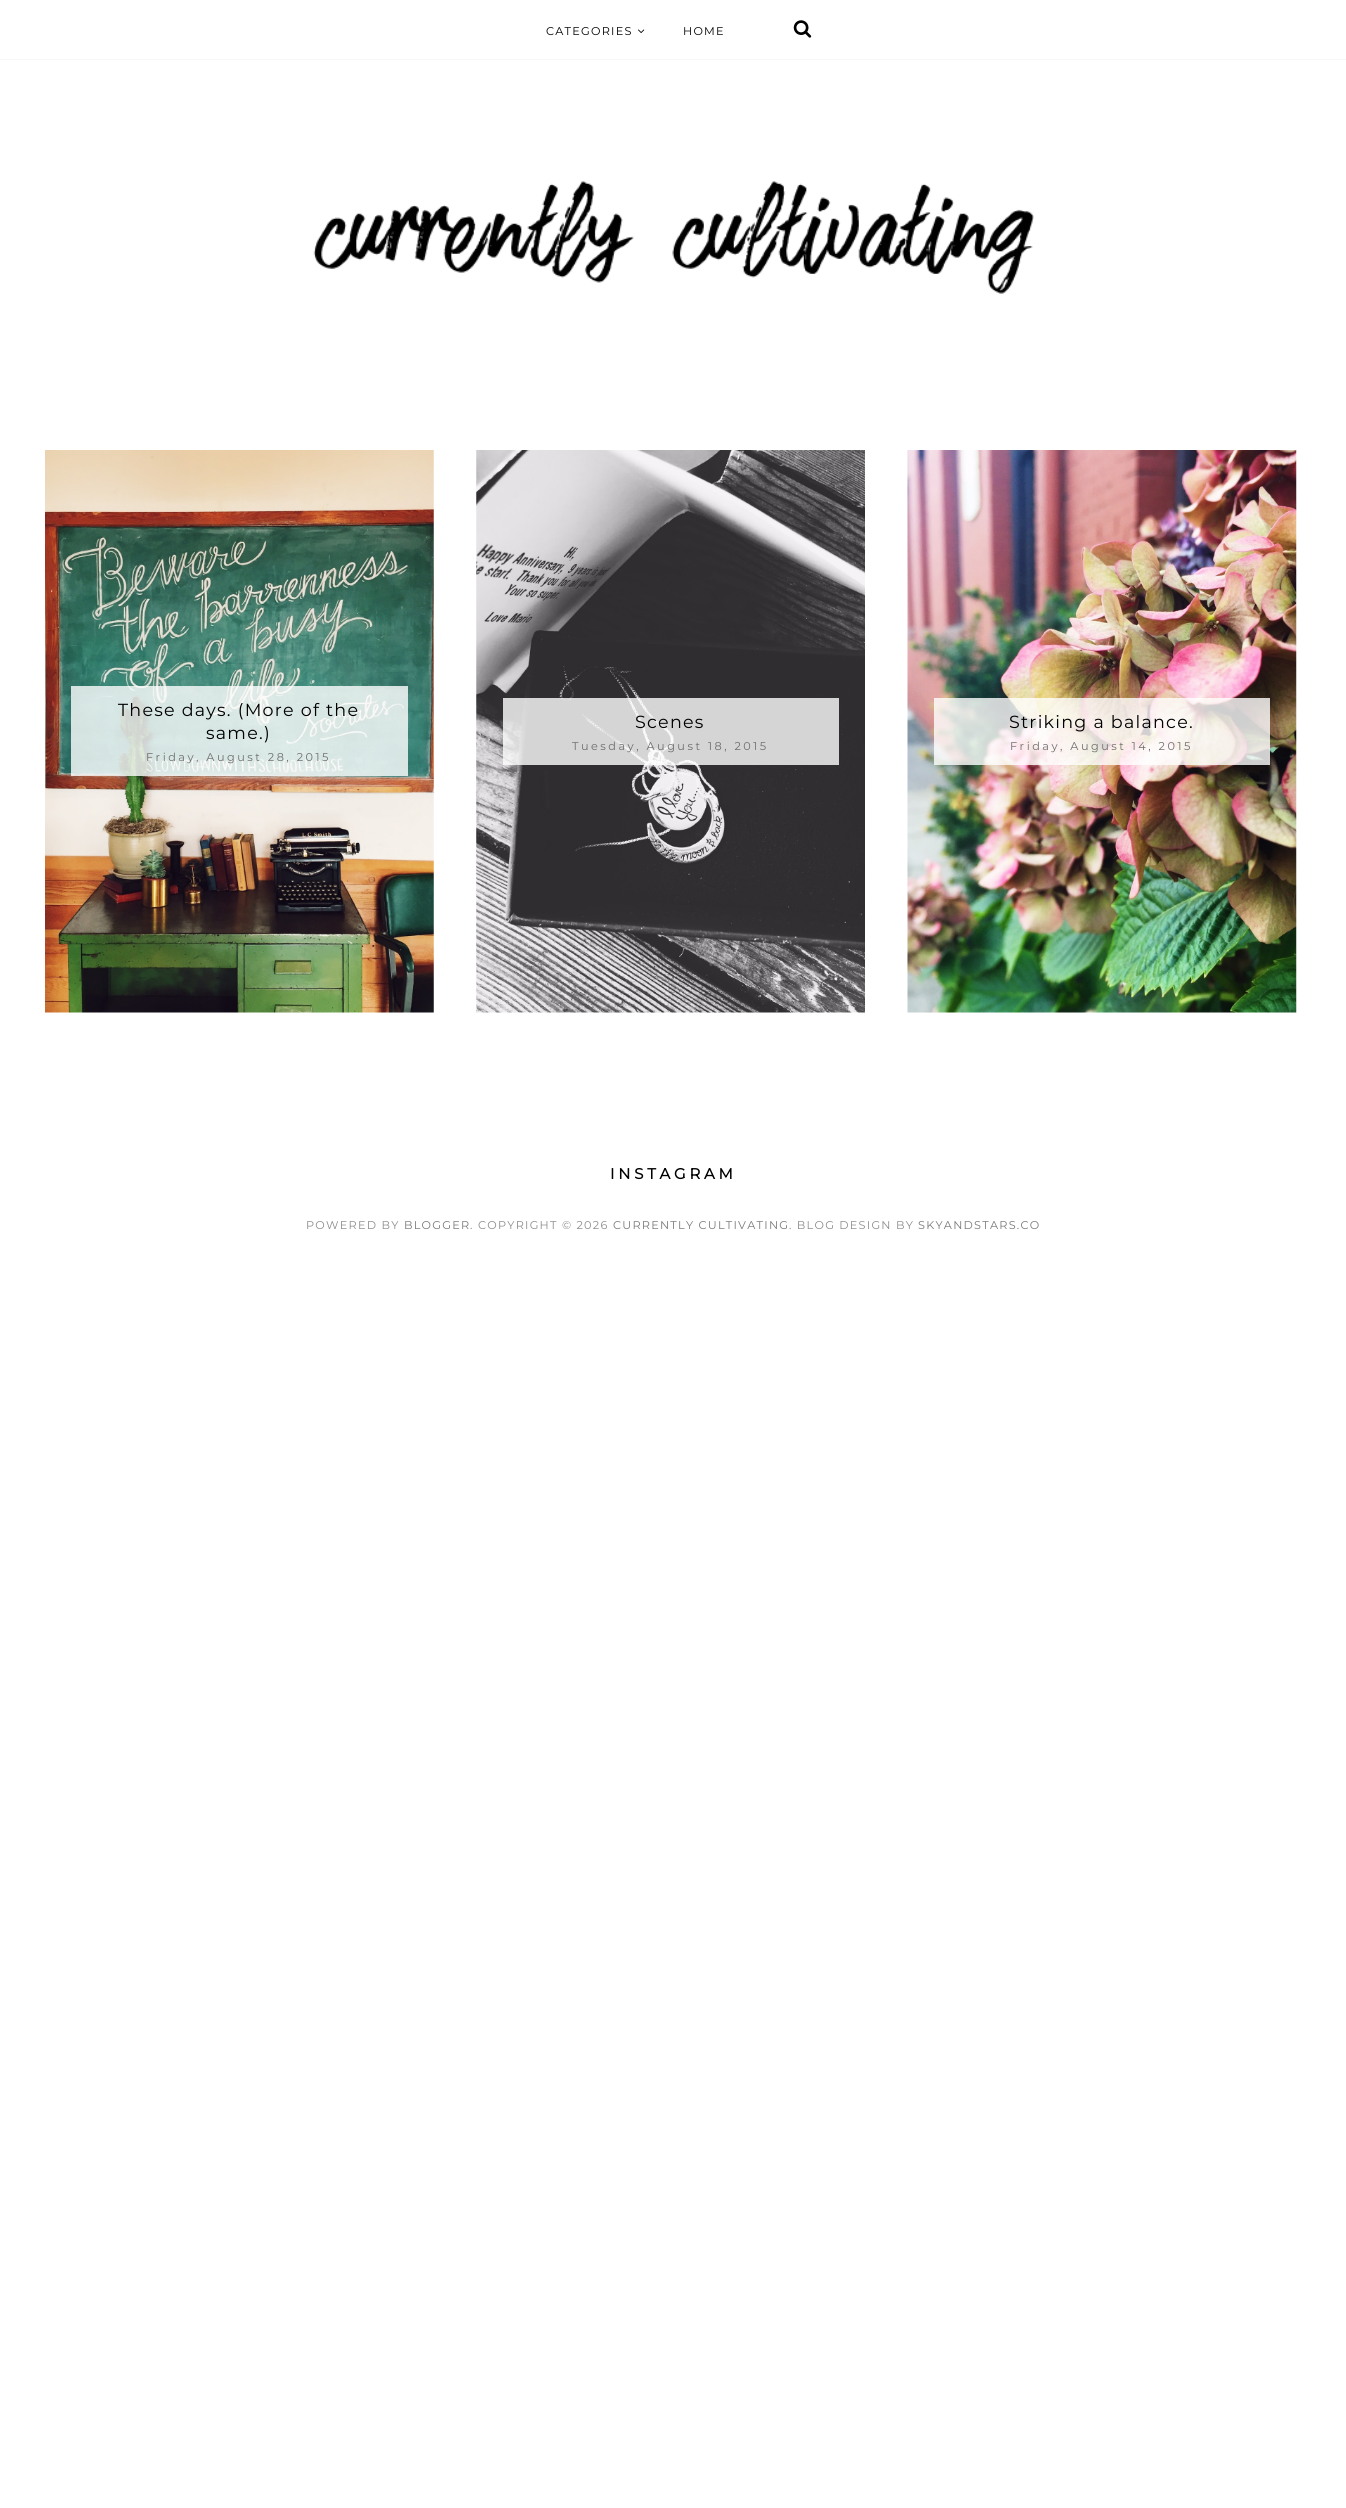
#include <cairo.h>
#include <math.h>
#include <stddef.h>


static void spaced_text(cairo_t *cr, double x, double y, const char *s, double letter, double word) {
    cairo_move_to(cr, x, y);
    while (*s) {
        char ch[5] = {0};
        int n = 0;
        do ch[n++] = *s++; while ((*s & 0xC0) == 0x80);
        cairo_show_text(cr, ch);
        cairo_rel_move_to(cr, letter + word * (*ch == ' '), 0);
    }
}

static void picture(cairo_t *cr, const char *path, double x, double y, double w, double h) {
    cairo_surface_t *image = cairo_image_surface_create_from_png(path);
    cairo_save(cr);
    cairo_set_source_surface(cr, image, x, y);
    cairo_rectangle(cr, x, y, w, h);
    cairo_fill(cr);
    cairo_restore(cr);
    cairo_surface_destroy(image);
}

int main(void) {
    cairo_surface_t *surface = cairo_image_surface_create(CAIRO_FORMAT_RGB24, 1346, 2508);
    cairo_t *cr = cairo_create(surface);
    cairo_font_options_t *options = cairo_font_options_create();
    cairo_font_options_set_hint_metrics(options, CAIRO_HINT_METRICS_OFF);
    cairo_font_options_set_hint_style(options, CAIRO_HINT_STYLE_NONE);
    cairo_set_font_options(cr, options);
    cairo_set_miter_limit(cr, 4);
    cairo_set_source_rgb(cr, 1, 1, 1);
    cairo_paint(cr);
    cairo_set_source_rgb(cr, 0.965, 0.965, 0.965);
    cairo_rectangle(cr, 0, 59, 1346, 1);
    cairo_fill(cr);
    cairo_select_font_face(cr, "Montserrat Thin", CAIRO_FONT_SLANT_NORMAL, CAIRO_FONT_WEIGHT_NORMAL);
    cairo_set_font_size(cr, 11.25);
    cairo_set_source_rgb(cr, 0, 0, 0);
    spaced_text(cr, 546, 35, "CATEGORIES", 1.25, 0);
    picture(cr, "img1.png", 638, 29, 7, 4);
    spaced_text(cr, 683, 35, "HOME", 1.25, 0);
    picture(cr, "img2.png", 793, 20, 19, 18);
    picture(cr, "img3.png", 313, 181, 721, 113);
    picture(cr, "img4.png", 45, 450, 389, 563);
    cairo_set_source_rgba(cr, 1, 1, 1, 0.8);
    cairo_rectangle(cr, 71, 686, 337, 90);
    cairo_fill(cr);
    cairo_set_font_size(cr, 17.5);
    cairo_set_source_rgb(cr, 0, 0, 0);
    spaced_text(cr, 118, 716, "These days. (More of the", 1.25, 0);
    spaced_text(cr, 206, 739, "same.)", 1.25, 0);
    cairo_set_font_size(cr, 11.25);
    cairo_set_source_rgb(cr, 0.427, 0.427, 0.427);
    spaced_text(cr, 146, 761, "Friday, August 28, 2015", 2.5, 0);
    picture(cr, "img5.png", 476, 450, 389, 563);
    cairo_set_source_rgba(cr, 1, 1, 1, 0.8);
    cairo_rectangle(cr, 503, 698, 336, 67);
    cairo_fill(cr);
    cairo_set_font_size(cr, 17.5);
    cairo_set_source_rgb(cr, 0, 0, 0);
    spaced_text(cr, 635, 728, "Scenes", 1.25, 0);
    cairo_set_font_size(cr, 11.25);
    cairo_set_source_rgb(cr, 0.427, 0.427, 0.427);
    spaced_text(cr, 572, 750, "Tuesday, August 18, 2015", 2.5, 0);
    picture(cr, "img6.png", 907, 450, 390, 563);
    cairo_set_source_rgba(cr, 1, 1, 1, 0.8);
    cairo_rectangle(cr, 934, 698, 336, 67);
    cairo_fill(cr);
    cairo_set_font_size(cr, 17.5);
    cairo_set_source_rgb(cr, 0, 0, 0);
    spaced_text(cr, 1009, 728, "Striking a balance.", 1.25, 0);
    cairo_set_font_size(cr, 11.25);
    cairo_set_source_rgb(cr, 0.427, 0.427, 0.427);
    spaced_text(cr, 1010, 750, "Friday, August 14, 2015", 2.5, 0);
    cairo_select_font_face(cr, "Montserrat", CAIRO_FONT_SLANT_NORMAL, CAIRO_FONT_WEIGHT_BOLD);
    cairo_set_font_size(cr, 15);
    cairo_set_source_rgb(cr, 0, 0, 0);
    spaced_text(cr, 610, 1179, "INSTAGRAM", 3.75, 0);
    cairo_select_font_face(cr, "Montserrat Thin", CAIRO_FONT_SLANT_NORMAL, CAIRO_FONT_WEIGHT_NORMAL);
    cairo_set_font_size(cr, 11.25);
    cairo_set_source_rgb(cr, 0.549, 0.549, 0.549);
    spaced_text(cr, 306, 1229, "POWERED BY", 1.25, 0);
    cairo_set_source_rgb(cr, 0.471, 0.471, 0.471);
    spaced_text(cr, 404, 1229, "BLOGGER", 1.25, 0);
    cairo_set_source_rgb(cr, 0.549, 0.549, 0.549);
    spaced_text(cr, 470, 1229, ".", 1.25, 0);
    spaced_text(cr, 478, 1229, "COPYRIGHT © 2026", 1.25, 0);
    cairo_set_source_rgb(cr, 0.471, 0.471, 0.471);
    spaced_text(cr, 613, 1229, "CURRENTLY CULTIVATING", 1.25, 0);
    cairo_set_source_rgb(cr, 0.549, 0.549, 0.549);
    spaced_text(cr, 789, 1229, ". BLOG DESIGN BY", 1.25, 0);
    cairo_set_source_rgb(cr, 0.471, 0.471, 0.471);
    spaced_text(cr, 918, 1229, "SKYANDSTARS.CO", 1.25, 0);
    cairo_surface_write_to_png(surface, "page.png");
    cairo_font_options_destroy(options);
    cairo_destroy(cr);
    cairo_surface_destroy(surface);
    return 0;
}
